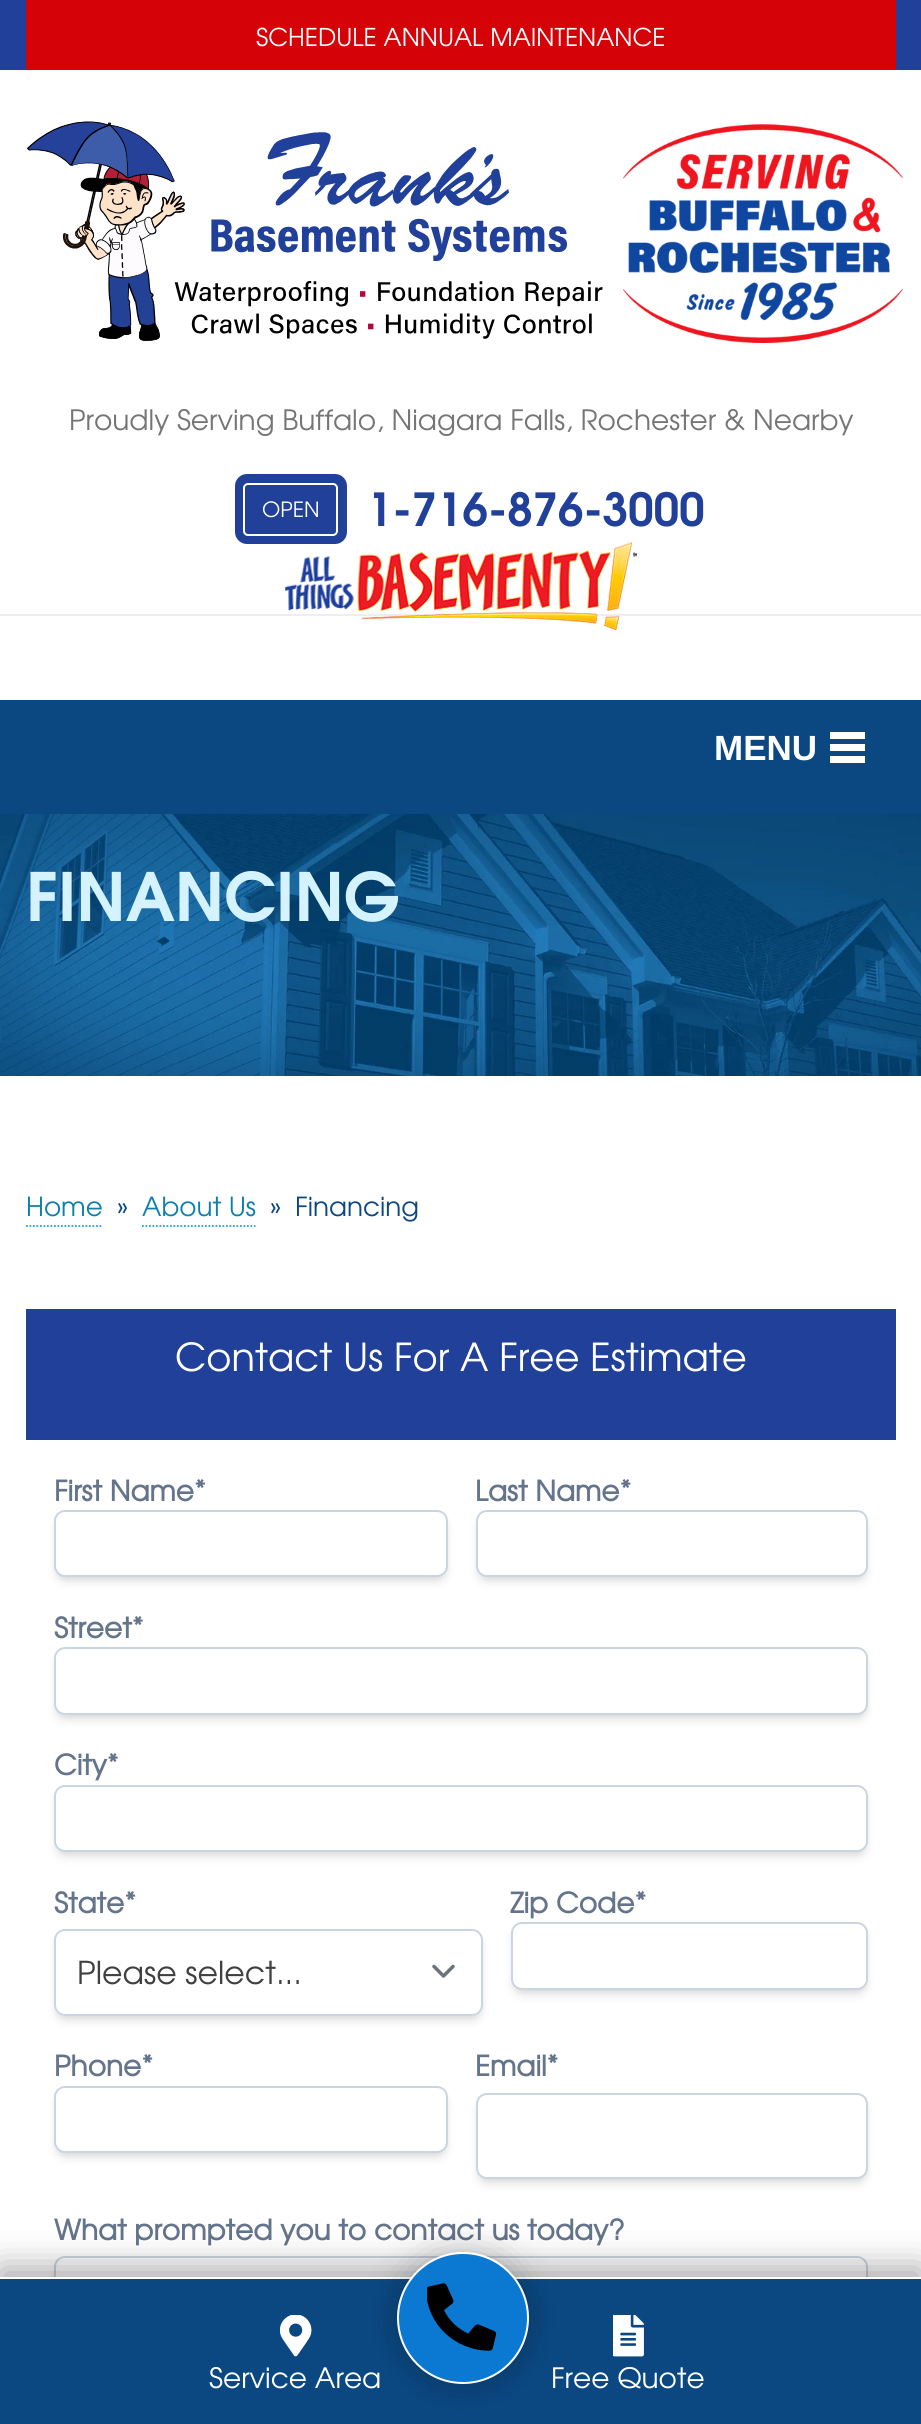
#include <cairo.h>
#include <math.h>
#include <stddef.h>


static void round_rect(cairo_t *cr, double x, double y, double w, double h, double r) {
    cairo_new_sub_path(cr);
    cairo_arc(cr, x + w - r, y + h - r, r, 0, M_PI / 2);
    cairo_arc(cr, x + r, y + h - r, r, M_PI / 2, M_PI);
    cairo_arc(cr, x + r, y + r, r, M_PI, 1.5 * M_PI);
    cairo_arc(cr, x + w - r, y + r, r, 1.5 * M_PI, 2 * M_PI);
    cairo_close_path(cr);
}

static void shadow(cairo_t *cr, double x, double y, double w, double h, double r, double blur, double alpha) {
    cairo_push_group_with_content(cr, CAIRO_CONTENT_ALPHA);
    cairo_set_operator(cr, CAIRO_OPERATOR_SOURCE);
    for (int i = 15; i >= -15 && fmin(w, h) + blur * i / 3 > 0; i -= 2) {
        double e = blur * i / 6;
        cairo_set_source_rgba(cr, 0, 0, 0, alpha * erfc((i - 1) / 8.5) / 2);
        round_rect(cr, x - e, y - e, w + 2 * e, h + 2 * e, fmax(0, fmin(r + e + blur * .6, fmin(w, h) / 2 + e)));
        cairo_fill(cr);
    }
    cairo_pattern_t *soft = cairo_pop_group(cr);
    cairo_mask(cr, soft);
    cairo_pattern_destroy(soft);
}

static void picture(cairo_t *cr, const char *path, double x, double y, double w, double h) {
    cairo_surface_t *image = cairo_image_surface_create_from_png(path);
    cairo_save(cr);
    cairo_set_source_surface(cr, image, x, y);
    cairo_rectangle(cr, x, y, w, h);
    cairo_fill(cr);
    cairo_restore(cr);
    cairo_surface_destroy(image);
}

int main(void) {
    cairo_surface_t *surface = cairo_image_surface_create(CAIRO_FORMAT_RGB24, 921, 2424);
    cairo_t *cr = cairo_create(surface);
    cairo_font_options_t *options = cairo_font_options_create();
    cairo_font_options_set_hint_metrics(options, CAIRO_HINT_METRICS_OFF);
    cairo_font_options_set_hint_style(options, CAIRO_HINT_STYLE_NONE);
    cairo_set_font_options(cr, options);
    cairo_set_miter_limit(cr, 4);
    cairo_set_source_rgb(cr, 0.129, 0.251, 0.604);
    cairo_paint(cr);
    cairo_set_source_rgb(cr, 0.835, 0.008, 0.031);
    cairo_rectangle(cr, 26, 0, 870, 70);
    cairo_fill(cr);
    cairo_select_font_face(cr, "TeX Gyre Adventor", CAIRO_FONT_SLANT_NORMAL, CAIRO_FONT_WEIGHT_NORMAL);
    cairo_set_font_size(cr, 24.5);
    cairo_set_source_rgb(cr, 1, 1, 1);
    cairo_move_to(cr, 256, 46);
    cairo_show_text(cr, "SCHEDULE ANNUAL MAINTENANCE");
    cairo_rectangle(cr, 0, 70, 921, 630);
    cairo_fill(cr);
    cairo_set_source_rgb(cr, 0.933, 0.933, 0.933);
    cairo_rectangle(cr, 0, 614, 921, 2);
    cairo_fill(cr);
    picture(cr, "img1.png", 27, 121, 576, 220);
    picture(cr, "img2.png", 623, 124, 280, 219);
    cairo_set_font_size(cr, 28);
    cairo_set_source_rgb(cr, 0.459, 0.459, 0.459);
    cairo_move_to(cr, 69, 430);
    cairo_show_text(cr, "Proudly Serving Buffalo, Niagara Falls, Rochester & Nearby");
    cairo_set_source_rgb(cr, 0.129, 0.251, 0.604);
    round_rect(cr, 235, 474, 112, 70, 12);
    cairo_fill(cr);
    round_rect(cr, 244, 484, 93, 51, 4);
    cairo_set_source_rgb(cr, 1, 1, 1);
    cairo_stroke(cr);
    cairo_set_font_size(cr, 21);
    cairo_move_to(cr, 262, 517);
    cairo_show_text(cr, "OPEN");
    cairo_select_font_face(cr, "TeX Gyre Adventor", CAIRO_FONT_SLANT_NORMAL, CAIRO_FONT_WEIGHT_BOLD);
    cairo_set_font_size(cr, 45.5);
    cairo_set_source_rgb(cr, 0.129, 0.251, 0.604);
    cairo_move_to(cr, 367, 526);
    cairo_show_text(cr, "1-716-876-3000");
    picture(cr, "img3.png", 285, 542, 352, 88);
    cairo_set_source_rgb(cr, 0.043, 0.282, 0.51);
    cairo_rectangle(cr, 0, 700, 921, 114);
    cairo_fill(cr);
    cairo_select_font_face(cr, "Liberation Sans", CAIRO_FONT_SLANT_NORMAL, CAIRO_FONT_WEIGHT_BOLD);
    cairo_set_font_size(cr, 35);
    cairo_set_source_rgb(cr, 1, 1, 1);
    cairo_move_to(cr, 714, 760);
    cairo_show_text(cr, "MENU");
    cairo_rectangle(cr, 830, 756, 35, 7);
    cairo_fill(cr);
    cairo_rectangle(cr, 830, 744, 35, 7);
    cairo_fill(cr);
    cairo_rectangle(cr, 830, 732, 35, 7);
    cairo_fill(cr);
    picture(cr, "img4.png", 0, 814, 921, 262);
    cairo_select_font_face(cr, "TeX Gyre Adventor", CAIRO_FONT_SLANT_NORMAL, CAIRO_FONT_WEIGHT_BOLD);
    cairo_set_font_size(cr, 66.5);
    cairo_set_source_rgb(cr, 0.835, 0.949, 1);
    cairo_move_to(cr, 26, 921);
    cairo_show_text(cr, "FINANCING");
    cairo_set_source_rgb(cr, 1, 1, 1);
    cairo_rectangle(cr, 0, 1076, 921, 1201);
    cairo_fill(cr);
    cairo_select_font_face(cr, "TeX Gyre Adventor", CAIRO_FONT_SLANT_NORMAL, CAIRO_FONT_WEIGHT_NORMAL);
    cairo_set_font_size(cr, 26.25);
    cairo_set_source_rgb(cr, 0.059, 0.498, 0.678);
    cairo_move_to(cr, 26, 1216);
    cairo_show_text(cr, "Home");
    cairo_new_path(cr);
    cairo_move_to(cr, 26, 1226);
    cairo_line_to(cr, 103, 1226);
    cairo_set_source_rgb(cr, 0.094, 0.643, 0.871);
    cairo_set_line_width(cr, 1.8);
    cairo_set_dash(cr, (double[]){1.75, 1.75}, 2, 0);
    cairo_stroke(cr);
    cairo_set_source_rgb(cr, 0.043, 0.282, 0.51);
    cairo_move_to(cr, 117, 1216);
    cairo_show_text(cr, "»");
    cairo_set_source_rgb(cr, 0.059, 0.498, 0.678);
    cairo_move_to(cr, 142, 1216);
    cairo_show_text(cr, "About Us");
    cairo_new_path(cr);
    cairo_move_to(cr, 142, 1226);
    cairo_line_to(cr, 255.5, 1226);
    cairo_set_source_rgb(cr, 0.094, 0.643, 0.871);
    cairo_stroke(cr);
    cairo_set_source_rgb(cr, 0.043, 0.282, 0.51);
    cairo_move_to(cr, 270, 1216);
    cairo_show_text(cr, "»");
    cairo_move_to(cr, 295, 1216);
    cairo_show_text(cr, "Financing");
    cairo_set_source_rgb(cr, 0.129, 0.251, 0.604);
    cairo_rectangle(cr, 26, 1309, 870, 131);
    cairo_fill(cr);
    cairo_set_font_size(cr, 38.5);
    cairo_set_source_rgb(cr, 1, 1, 1);
    cairo_move_to(cr, 175, 1371);
    cairo_show_text(cr, "Contact Us For A Free Estimate");
    cairo_select_font_face(cr, "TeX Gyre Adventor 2", CAIRO_FONT_SLANT_NORMAL, CAIRO_FONT_WEIGHT_BOLD);
    cairo_set_font_size(cr, 28);
    cairo_set_source_rgb(cr, 0.392, 0.455, 0.545);
    cairo_move_to(cr, 54, 1501);
    cairo_show_text(cr, "First Name*");
    cairo_set_source_rgb(cr, 0, 0, 0);
    shadow(cr, 58, 1517, 387, 60, 7, 3.5, 0.1);
    shadow(cr, 56, 1519, 390, 63, 9, 5, 0.1);
    cairo_set_source_rgb(cr, 1, 1, 1);
    round_rect(cr, 55, 1511, 392, 65, 10);
    cairo_fill_preserve(cr);
    cairo_set_source_rgb(cr, 0.796, 0.835, 0.882);
    cairo_set_line_width(cr, 2);
    cairo_set_dash(cr, NULL, 0, 0);
    cairo_stroke(cr);
    cairo_set_source_rgb(cr, 0.392, 0.455, 0.545);
    cairo_move_to(cr, 475, 1501);
    cairo_show_text(cr, "Last Name*");
    cairo_set_source_rgb(cr, 0, 0, 0);
    shadow(cr, 480, 1517, 385, 60, 7, 3.5, 0.1);
    shadow(cr, 478, 1519, 388, 63, 9, 5, 0.1);
    cairo_set_source_rgb(cr, 1, 1, 1);
    round_rect(cr, 477, 1511, 390, 65, 10);
    cairo_fill_preserve(cr);
    cairo_set_source_rgb(cr, 0.796, 0.835, 0.882);
    cairo_stroke(cr);
    cairo_set_source_rgb(cr, 0.392, 0.455, 0.545);
    cairo_move_to(cr, 54, 1638);
    cairo_show_text(cr, "Street*");
    cairo_set_source_rgb(cr, 0, 0, 0);
    shadow(cr, 58, 1654, 807, 61, 7, 3.5, 0.1);
    shadow(cr, 56, 1656, 810, 64, 9, 5, 0.1);
    cairo_set_source_rgb(cr, 1, 1, 1);
    round_rect(cr, 55, 1648, 812, 66, 10);
    cairo_fill_preserve(cr);
    cairo_set_source_rgb(cr, 0.796, 0.835, 0.882);
    cairo_stroke(cr);
    cairo_set_source_rgb(cr, 0.392, 0.455, 0.545);
    cairo_move_to(cr, 54, 1775);
    cairo_show_text(cr, "City*");
    cairo_set_source_rgb(cr, 0, 0, 0);
    shadow(cr, 58, 1792, 807, 60, 7, 3.5, 0.1);
    shadow(cr, 56, 1794, 810, 63, 9, 5, 0.1);
    cairo_set_source_rgb(cr, 1, 1, 1);
    round_rect(cr, 55, 1786, 812, 65, 10);
    cairo_fill_preserve(cr);
    cairo_set_source_rgb(cr, 0.796, 0.835, 0.882);
    cairo_stroke(cr);
    cairo_set_source_rgb(cr, 0.392, 0.455, 0.545);
    cairo_move_to(cr, 54, 1913);
    cairo_show_text(cr, "State*");
    cairo_set_source_rgb(cr, 0, 0, 0);
    shadow(cr, 58, 1936, 422, 80, 7, 3.5, 0.1);
    shadow(cr, 56, 1937, 425, 84, 9, 5, 0.1);
    cairo_set_source_rgb(cr, 1, 1, 1);
    round_rect(cr, 54, 1929, 429, 87, 11);
    cairo_fill(cr);
    cairo_new_path(cr);
    cairo_move_to(cr, 434, 1966.5);
    cairo_line_to(cr, 443.5, 1976);
    cairo_line_to(cr, 453, 1966.5);
    cairo_set_source_rgb(cr, 0.42, 0.447, 0.502);
    cairo_set_line_width(cr, 3.5);
    cairo_set_line_cap(cr, CAIRO_LINE_CAP_ROUND);
    cairo_set_line_join(cr, CAIRO_LINE_JOIN_ROUND);
    cairo_stroke(cr);
    round_rect(cr, 55, 1930, 427, 85, 10);
    cairo_set_source_rgb(cr, 0.796, 0.835, 0.882);
    cairo_set_line_width(cr, 2);
    cairo_set_line_cap(cr, CAIRO_LINE_CAP_BUTT);
    cairo_set_line_join(cr, CAIRO_LINE_JOIN_MITER);
    cairo_stroke(cr);
    cairo_select_font_face(cr, "TeX Gyre Adventor", CAIRO_FONT_SLANT_NORMAL, CAIRO_FONT_WEIGHT_NORMAL);
    cairo_set_font_size(cr, 31.5);
    cairo_set_source_rgb(cr, 0.251, 0.251, 0.251);
    cairo_move_to(cr, 77, 1984);
    cairo_show_text(cr, "Please select...");
    cairo_select_font_face(cr, "TeX Gyre Adventor 2", CAIRO_FONT_SLANT_NORMAL, CAIRO_FONT_WEIGHT_BOLD);
    cairo_set_font_size(cr, 28);
    cairo_set_source_rgb(cr, 0.392, 0.455, 0.545);
    cairo_move_to(cr, 510, 1913);
    cairo_show_text(cr, "Zip Code*");
    cairo_set_source_rgb(cr, 0, 0, 0);
    shadow(cr, 515, 1929, 350, 61, 7, 3.5, 0.1);
    shadow(cr, 513, 1930, 353, 65, 9, 5, 0.1);
    cairo_set_source_rgb(cr, 1, 1, 1);
    round_rect(cr, 512, 1923, 355, 66, 10);
    cairo_fill_preserve(cr);
    cairo_set_source_rgb(cr, 0.796, 0.835, 0.882);
    cairo_stroke(cr);
    cairo_set_source_rgb(cr, 0.392, 0.455, 0.545);
    cairo_move_to(cr, 54, 2076);
    cairo_show_text(cr, "Phone*");
    cairo_set_source_rgb(cr, 0, 0, 0);
    shadow(cr, 58, 2093, 387, 60, 7, 3.5, 0.1);
    shadow(cr, 56, 2095, 390, 63, 9, 5, 0.1);
    cairo_set_source_rgb(cr, 1, 1, 1);
    round_rect(cr, 55, 2087, 392, 65, 10);
    cairo_fill_preserve(cr);
    cairo_set_source_rgb(cr, 0.796, 0.835, 0.882);
    cairo_stroke(cr);
    cairo_set_source_rgb(cr, 0.392, 0.455, 0.545);
    cairo_move_to(cr, 475, 2076);
    cairo_show_text(cr, "Email*");
    cairo_set_source_rgb(cr, 0, 0, 0);
    shadow(cr, 480, 2100, 385, 79, 7, 3.5, 0.1);
    shadow(cr, 478, 2102, 388, 82, 9, 5, 0.1);
    cairo_set_source_rgb(cr, 1, 1, 1);
    round_rect(cr, 477, 2094, 390, 84, 10);
    cairo_fill_preserve(cr);
    cairo_set_source_rgb(cr, 0.796, 0.835, 0.882);
    cairo_stroke(cr);
    cairo_set_source_rgb(cr, 0.392, 0.455, 0.545);
    cairo_move_to(cr, 54, 2240);
    cairo_show_text(cr, "What prompted you to contact us today?");
    cairo_set_source_rgb(cr, 0, 0, 0);
    shadow(cr, 56, 2265, 810, 84, 9, 5, 0.1);
    cairo_set_source_rgb(cr, 1, 1, 1);
    round_rect(cr, 55, 2257, 812, 85, 10);
    cairo_fill_preserve(cr);
    cairo_set_source_rgb(cr, 0.796, 0.835, 0.882);
    cairo_stroke(cr);
    cairo_set_source_rgb(cr, 0, 0, 0);
    shadow(cr, 0, 2268, 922, 149, 0, 17.5, 0.35);
    cairo_set_source_rgb(cr, 0.043, 0.282, 0.51);
    cairo_rectangle(cr, 0, 2279, 921, 145);
    cairo_fill(cr);
    cairo_set_source_rgb(cr, 1, 1, 1);
    cairo_rectangle(cr, 0, 2277, 921, 2);
    cairo_fill(cr);
    picture(cr, "img5.png", 280, 2315, 32, 42);
    cairo_select_font_face(cr, "TeX Gyre Adventor", CAIRO_FONT_SLANT_NORMAL, CAIRO_FONT_WEIGHT_NORMAL);
    cairo_move_to(cr, 209, 2388);
    cairo_show_text(cr, "Service Area");
    cairo_set_source_rgb(cr, 0, 0, 0);
    shadow(cr, 397, 2252, 132, 132, 66, 17.5, 0.25);
    cairo_set_source_rgb(cr, 0.043, 0.475, 0.824);
    cairo_arc(cr, 463, 2318, 65, 0, 2 * M_PI);
    cairo_fill_preserve(cr);
    cairo_set_source_rgb(cr, 1, 1, 1);
    cairo_stroke(cr);
    picture(cr, "img6.png", 427, 2283, 70, 68);
    picture(cr, "img7.png", 613, 2315, 31, 42);
    cairo_move_to(cr, 551, 2388);
    cairo_show_text(cr, "Free Quote");
    cairo_surface_write_to_png(surface, "page.png");
    cairo_font_options_destroy(options);
    cairo_destroy(cr);
    cairo_surface_destroy(surface);
    return 0;
}
